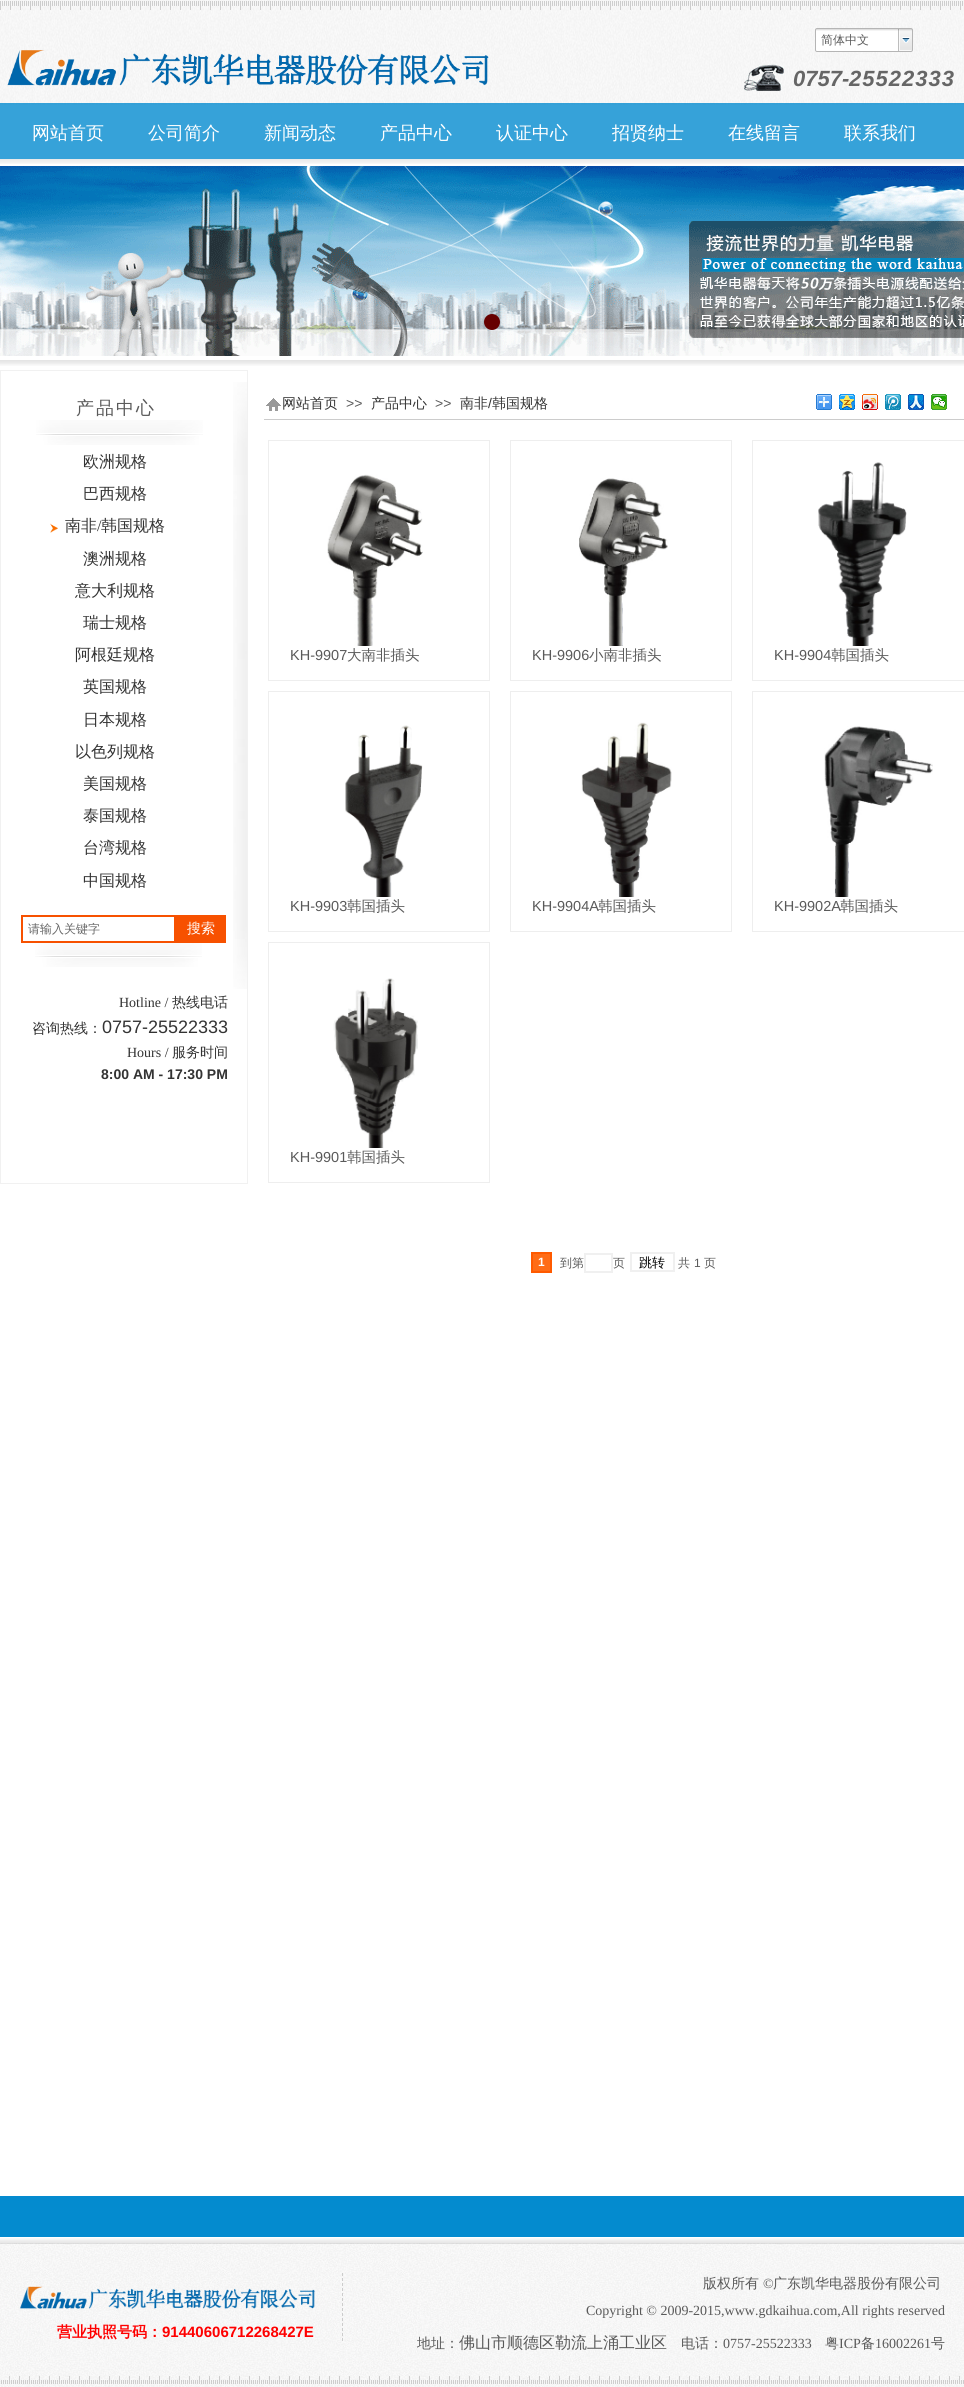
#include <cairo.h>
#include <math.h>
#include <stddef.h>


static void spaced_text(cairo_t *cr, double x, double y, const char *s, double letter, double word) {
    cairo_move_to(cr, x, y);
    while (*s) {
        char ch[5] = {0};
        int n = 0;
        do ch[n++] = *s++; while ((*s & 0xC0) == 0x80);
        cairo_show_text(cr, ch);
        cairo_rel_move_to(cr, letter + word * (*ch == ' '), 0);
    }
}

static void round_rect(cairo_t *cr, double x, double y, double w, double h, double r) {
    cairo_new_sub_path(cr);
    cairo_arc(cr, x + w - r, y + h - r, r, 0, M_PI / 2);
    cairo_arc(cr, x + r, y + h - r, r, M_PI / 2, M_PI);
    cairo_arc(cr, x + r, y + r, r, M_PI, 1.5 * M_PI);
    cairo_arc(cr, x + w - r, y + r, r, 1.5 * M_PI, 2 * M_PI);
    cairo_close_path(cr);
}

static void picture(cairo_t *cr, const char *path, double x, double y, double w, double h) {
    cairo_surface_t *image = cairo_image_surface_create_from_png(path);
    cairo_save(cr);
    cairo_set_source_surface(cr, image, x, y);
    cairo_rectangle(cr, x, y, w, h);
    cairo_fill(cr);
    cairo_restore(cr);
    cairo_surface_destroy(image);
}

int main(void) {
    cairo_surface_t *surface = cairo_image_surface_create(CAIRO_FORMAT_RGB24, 964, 2387);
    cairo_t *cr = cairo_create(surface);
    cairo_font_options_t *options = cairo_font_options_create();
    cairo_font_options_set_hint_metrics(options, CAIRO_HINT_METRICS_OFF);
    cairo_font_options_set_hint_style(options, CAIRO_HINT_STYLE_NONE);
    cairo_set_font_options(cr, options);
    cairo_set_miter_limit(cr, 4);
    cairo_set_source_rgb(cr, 1, 1, 1);
    cairo_paint(cr);
    picture(cr, "img1.png", 0, 0, 964, 105);
    picture(cr, "img2.png", 0, 1, 963, 9);
    cairo_set_source_rgb(cr, 1, 1, 1);
    round_rect(cr, 815, 28, 98, 24, 2);
    cairo_fill(cr);
    picture(cr, "img3.png", 815, 29, 98, 2);
    round_rect(cr, 815.5, 28.5, 97, 23, 1.5);
    cairo_set_source_rgb(cr, 0.71, 0.71, 0.71);
    cairo_set_line_width(cr, 1);
    cairo_stroke(cr);
    cairo_select_font_face(cr, "WenQuanYi Zen Hei Medium", CAIRO_FONT_SLANT_NORMAL, CAIRO_FONT_WEIGHT_NORMAL);
    cairo_set_font_size(cr, 12);
    cairo_set_source_rgb(cr, 0.353, 0.353, 0.353);
    cairo_move_to(cr, 821, 44);
    cairo_show_text(cr, "简体中文");
    picture(cr, "img4.png", 898, 29, 14, 22);
    picture(cr, "img5.png", 7, 50, 482, 36);
    picture(cr, "img6.png", 744, 64, 40, 27);
    cairo_select_font_face(cr, "Liberation Sans", CAIRO_FONT_SLANT_ITALIC, CAIRO_FONT_WEIGHT_BOLD);
    cairo_set_font_size(cr, 22);
    cairo_set_source_rgb(cr, 0.4, 0.4, 0.4);
    cairo_move_to(cr, 793, 86);
    cairo_show_text(cr, "0757-");
    spaced_text(cr, 849, 86, "25522333", 1, 0);
    picture(cr, "img7.png", 0, 166, 964, 190);
    cairo_set_source_rgb(cr, 0.4, 0, 0);
    cairo_arc(cr, 492, 322, 7, 0, 2 * M_PI);
    cairo_fill_preserve(cr);
    cairo_set_line_width(cr, 2);
    cairo_stroke(cr);
    picture(cr, "img8.png", 0, 360, 964, 6);
    picture(cr, "img9.png", 0, 103, 964, 61);
    cairo_select_font_face(cr, "WenQuanYi Zen Hei Medium", CAIRO_FONT_SLANT_NORMAL, CAIRO_FONT_WEIGHT_NORMAL);
    cairo_set_font_size(cr, 18);
    cairo_set_source_rgb(cr, 1, 1, 1);
    cairo_move_to(cr, 32, 139);
    cairo_show_text(cr, "网站首页");
    cairo_move_to(cr, 148, 139);
    cairo_show_text(cr, "公司简介");
    cairo_move_to(cr, 264, 139);
    cairo_show_text(cr, "新闻动态");
    cairo_move_to(cr, 380, 139);
    cairo_show_text(cr, "产品中心");
    cairo_move_to(cr, 496, 139);
    cairo_show_text(cr, "认证中心");
    cairo_move_to(cr, 612, 139);
    cairo_show_text(cr, "招贤纳士");
    cairo_move_to(cr, 728, 139);
    cairo_show_text(cr, "在线留言");
    cairo_move_to(cr, 844, 139);
    cairo_show_text(cr, "联系我们");
    picture(cr, "img10.png", 233, 382, 14, 607);
    cairo_rectangle(cr, 0.5, 370.5, 247, 813);
    cairo_set_source_rgb(cr, 0.945, 0.945, 0.945);
    cairo_set_line_width(cr, 1);
    cairo_stroke(cr);
    cairo_set_source_rgb(cr, 0.353, 0.353, 0.353);
    spaced_text(cr, 76, 414, "产品中心", 2, 0);
    picture(cr, "img11.png", 266, 398, 15, 13);
    cairo_set_font_size(cr, 14);
    cairo_set_source_rgb(cr, 0.2, 0.2, 0.2);
    cairo_move_to(cr, 282, 408);
    cairo_show_text(cr, "网站首页");
    cairo_select_font_face(cr, "Liberation Sans", CAIRO_FONT_SLANT_NORMAL, CAIRO_FONT_WEIGHT_NORMAL);
    cairo_set_source_rgb(cr, 0.353, 0.353, 0.353);
    cairo_move_to(cr, 346, 408);
    cairo_show_text(cr, ">>");
    cairo_select_font_face(cr, "WenQuanYi Zen Hei Medium", CAIRO_FONT_SLANT_NORMAL, CAIRO_FONT_WEIGHT_NORMAL);
    cairo_set_source_rgb(cr, 0.2, 0.2, 0.2);
    cairo_move_to(cr, 371, 408);
    cairo_show_text(cr, "产品中心");
    cairo_select_font_face(cr, "Liberation Sans", CAIRO_FONT_SLANT_NORMAL, CAIRO_FONT_WEIGHT_NORMAL);
    cairo_set_source_rgb(cr, 0.353, 0.353, 0.353);
    cairo_move_to(cr, 435, 408);
    cairo_show_text(cr, ">>");
    cairo_select_font_face(cr, "WenQuanYi Zen Hei Medium", CAIRO_FONT_SLANT_NORMAL, CAIRO_FONT_WEIGHT_NORMAL);
    cairo_set_source_rgb(cr, 0.2, 0.2, 0.2);
    cairo_move_to(cr, 460, 408);
    cairo_show_text(cr, "南非");
    cairo_select_font_face(cr, "Liberation Sans", CAIRO_FONT_SLANT_NORMAL, CAIRO_FONT_WEIGHT_NORMAL);
    cairo_move_to(cr, 488, 408);
    cairo_show_text(cr, "/");
    cairo_select_font_face(cr, "WenQuanYi Zen Hei Medium", CAIRO_FONT_SLANT_NORMAL, CAIRO_FONT_WEIGHT_NORMAL);
    cairo_move_to(cr, 492, 408);
    cairo_show_text(cr, "韩国规格");
    picture(cr, "img12.png", 816, 394, 16, 16);
    picture(cr, "img13.png", 839, 394, 16, 16);
    picture(cr, "img14.png", 862, 394, 16, 16);
    picture(cr, "img15.png", 885, 394, 16, 16);
    picture(cr, "img16.png", 908, 394, 16, 16);
    picture(cr, "img17.png", 931, 394, 16, 16);
    cairo_set_source_rgb(cr, 0.8, 0.8, 0.8);
    cairo_rectangle(cr, 264, 419, 700, 1);
    cairo_fill(cr);
    picture(cr, "img18.png", 36, 420, 167, 25);
    cairo_set_font_size(cr, 16);
    cairo_set_source_rgb(cr, 0.2, 0.2, 0.2);
    cairo_move_to(cr, 83, 467);
    cairo_show_text(cr, "欧洲规格");
    cairo_move_to(cr, 83, 499);
    cairo_show_text(cr, "巴西规格");
    picture(cr, "img19.png", 50, 523, 8, 10);
    cairo_move_to(cr, 65, 531);
    cairo_show_text(cr, "南非");
    cairo_select_font_face(cr, "Liberation Serif", CAIRO_FONT_SLANT_NORMAL, CAIRO_FONT_WEIGHT_NORMAL);
    cairo_move_to(cr, 97, 531);
    cairo_show_text(cr, "/");
    cairo_select_font_face(cr, "WenQuanYi Zen Hei Medium", CAIRO_FONT_SLANT_NORMAL, CAIRO_FONT_WEIGHT_NORMAL);
    cairo_move_to(cr, 101, 531);
    cairo_show_text(cr, "韩国规格");
    cairo_move_to(cr, 83, 564);
    cairo_show_text(cr, "澳洲规格");
    cairo_move_to(cr, 75, 596);
    cairo_show_text(cr, "意大利规格");
    cairo_move_to(cr, 83, 628);
    cairo_show_text(cr, "瑞士规格");
    cairo_move_to(cr, 75, 660);
    cairo_show_text(cr, "阿根廷规格");
    cairo_move_to(cr, 83, 692);
    cairo_show_text(cr, "英国规格");
    cairo_move_to(cr, 83, 725);
    cairo_show_text(cr, "日本规格");
    cairo_move_to(cr, 75, 757);
    cairo_show_text(cr, "以色列规格");
    cairo_move_to(cr, 83, 789);
    cairo_show_text(cr, "美国规格");
    cairo_move_to(cr, 83, 821);
    cairo_show_text(cr, "泰国规格");
    cairo_move_to(cr, 83, 853);
    cairo_show_text(cr, "台湾规格");
    cairo_move_to(cr, 83, 886);
    cairo_show_text(cr, "中国规格");
    cairo_rectangle(cr, 268.5, 440.5, 221, 240);
    cairo_set_source_rgb(cr, 0.933, 0.933, 0.933);
    cairo_stroke(cr);
    picture(cr, "img20.png", 327, 474, 96, 172);
    cairo_select_font_face(cr, "Liberation Sans", CAIRO_FONT_SLANT_NORMAL, CAIRO_FONT_WEIGHT_NORMAL);
    cairo_set_font_size(cr, 14.5);
    cairo_set_source_rgb(cr, 0.353, 0.353, 0.353);
    cairo_move_to(cr, 290, 660);
    cairo_show_text(cr, "KH-9907");
    cairo_select_font_face(cr, "WenQuanYi Zen Hei Medium", CAIRO_FONT_SLANT_NORMAL, CAIRO_FONT_WEIGHT_NORMAL);
    cairo_move_to(cr, 347, 660);
    cairo_show_text(cr, "大南非插头");
    cairo_rectangle(cr, 510.5, 440.5, 221, 240);
    cairo_set_source_rgb(cr, 0.933, 0.933, 0.933);
    cairo_stroke(cr);
    picture(cr, "img21.png", 579, 478, 89, 168);
    cairo_select_font_face(cr, "Liberation Sans", CAIRO_FONT_SLANT_NORMAL, CAIRO_FONT_WEIGHT_NORMAL);
    cairo_set_source_rgb(cr, 0.353, 0.353, 0.353);
    cairo_move_to(cr, 532, 660);
    cairo_show_text(cr, "KH-9906");
    cairo_select_font_face(cr, "WenQuanYi Zen Hei Medium", CAIRO_FONT_SLANT_NORMAL, CAIRO_FONT_WEIGHT_NORMAL);
    cairo_move_to(cr, 589, 660);
    cairo_show_text(cr, "小南非插头");
    cairo_rectangle(cr, 752.5, 440.5, 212, 240);
    cairo_set_source_rgb(cr, 0.933, 0.933, 0.933);
    cairo_stroke(cr);
    picture(cr, "img22.png", 818, 462, 89, 184);
    cairo_select_font_face(cr, "Liberation Sans", CAIRO_FONT_SLANT_NORMAL, CAIRO_FONT_WEIGHT_NORMAL);
    cairo_set_source_rgb(cr, 0.353, 0.353, 0.353);
    cairo_move_to(cr, 774, 660);
    cairo_show_text(cr, "KH-9904");
    cairo_select_font_face(cr, "WenQuanYi Zen Hei Medium", CAIRO_FONT_SLANT_NORMAL, CAIRO_FONT_WEIGHT_NORMAL);
    cairo_move_to(cr, 831, 660);
    cairo_show_text(cr, "韩国插头");
    cairo_rectangle(cr, 268.5, 691.5, 221, 240);
    cairo_set_source_rgb(cr, 0.933, 0.933, 0.933);
    cairo_stroke(cr);
    picture(cr, "img23.png", 345, 725, 78, 172);
    cairo_select_font_face(cr, "Liberation Sans", CAIRO_FONT_SLANT_NORMAL, CAIRO_FONT_WEIGHT_NORMAL);
    cairo_set_source_rgb(cr, 0.353, 0.353, 0.353);
    cairo_move_to(cr, 290, 911);
    cairo_show_text(cr, "KH-9903");
    cairo_select_font_face(cr, "WenQuanYi Zen Hei Medium", CAIRO_FONT_SLANT_NORMAL, CAIRO_FONT_WEIGHT_NORMAL);
    cairo_move_to(cr, 347, 911);
    cairo_show_text(cr, "韩国插头");
    cairo_rectangle(cr, 510.5, 691.5, 221, 240);
    cairo_set_source_rgb(cr, 0.933, 0.933, 0.933);
    cairo_stroke(cr);
    picture(cr, "img24.png", 581, 722, 91, 175);
    cairo_select_font_face(cr, "Liberation Sans", CAIRO_FONT_SLANT_NORMAL, CAIRO_FONT_WEIGHT_NORMAL);
    cairo_set_source_rgb(cr, 0.353, 0.353, 0.353);
    cairo_move_to(cr, 532, 911);
    cairo_show_text(cr, "KH-9904A");
    cairo_select_font_face(cr, "WenQuanYi Zen Hei Medium", CAIRO_FONT_SLANT_NORMAL, CAIRO_FONT_WEIGHT_NORMAL);
    cairo_move_to(cr, 598, 911);
    cairo_show_text(cr, "韩国插头");
    cairo_rectangle(cr, 752.5, 691.5, 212, 240);
    cairo_set_source_rgb(cr, 0.933, 0.933, 0.933);
    cairo_stroke(cr);
    picture(cr, "img25.png", 824, 726, 109, 171);
    cairo_select_font_face(cr, "Liberation Sans", CAIRO_FONT_SLANT_NORMAL, CAIRO_FONT_WEIGHT_NORMAL);
    cairo_set_source_rgb(cr, 0.353, 0.353, 0.353);
    cairo_move_to(cr, 774, 911);
    cairo_show_text(cr, "KH-9902A");
    cairo_select_font_face(cr, "WenQuanYi Zen Hei Medium", CAIRO_FONT_SLANT_NORMAL, CAIRO_FONT_WEIGHT_NORMAL);
    cairo_move_to(cr, 840, 911);
    cairo_show_text(cr, "韩国插头");
    cairo_rectangle(cr, 268.5, 942.5, 221, 240);
    cairo_set_source_rgb(cr, 0.933, 0.933, 0.933);
    cairo_stroke(cr);
    picture(cr, "img26.png", 333, 978, 85, 170);
    cairo_select_font_face(cr, "Liberation Sans", CAIRO_FONT_SLANT_NORMAL, CAIRO_FONT_WEIGHT_NORMAL);
    cairo_set_source_rgb(cr, 0.353, 0.353, 0.353);
    cairo_move_to(cr, 290, 1162);
    cairo_show_text(cr, "KH-9901");
    cairo_select_font_face(cr, "WenQuanYi Zen Hei Medium", CAIRO_FONT_SLANT_NORMAL, CAIRO_FONT_WEIGHT_NORMAL);
    cairo_move_to(cr, 347, 1162);
    cairo_show_text(cr, "韩国插头");
    cairo_set_source_rgb(cr, 1, 0.424, 0.086);
    cairo_rectangle(cr, 532, 1253, 19, 19);
    cairo_fill_preserve(cr);
    cairo_set_source_rgb(cr, 1, 0.353, 0);
    cairo_set_line_width(cr, 2);
    cairo_stroke(cr);
    cairo_select_font_face(cr, "Liberation Sans", CAIRO_FONT_SLANT_NORMAL, CAIRO_FONT_WEIGHT_BOLD);
    cairo_set_font_size(cr, 12);
    cairo_set_source_rgb(cr, 1, 1, 1);
    cairo_move_to(cr, 538, 1266);
    cairo_show_text(cr, "1");
    cairo_select_font_face(cr, "WenQuanYi Zen Hei Medium", CAIRO_FONT_SLANT_NORMAL, CAIRO_FONT_WEIGHT_NORMAL);
    cairo_set_source_rgb(cr, 0.353, 0.353, 0.353);
    cairo_move_to(cr, 560, 1267);
    cairo_show_text(cr, "到第");
    cairo_rectangle(cr, 585, 1254, 27, 18);
    cairo_set_source_rgb(cr, 0.941, 0.941, 0.941);
    cairo_stroke(cr);
    cairo_set_source_rgb(cr, 0.353, 0.353, 0.353);
    cairo_move_to(cr, 613, 1267);
    cairo_show_text(cr, "页");
    cairo_rectangle(cr, 631, 1253, 43, 18);
    cairo_set_source_rgb(cr, 0.941, 0.941, 0.941);
    cairo_stroke(cr);
    cairo_set_font_size(cr, 13);
    cairo_set_source_rgb(cr, 0, 0, 0);
    cairo_move_to(cr, 639, 1267);
    cairo_show_text(cr, "跳转");
    cairo_set_font_size(cr, 12);
    cairo_set_source_rgb(cr, 0.353, 0.353, 0.353);
    cairo_move_to(cr, 678, 1267);
    cairo_show_text(cr, "共");
    cairo_select_font_face(cr, "Liberation Sans", CAIRO_FONT_SLANT_NORMAL, CAIRO_FONT_WEIGHT_NORMAL);
    cairo_move_to(cr, 694, 1267);
    cairo_show_text(cr, "1");
    cairo_select_font_face(cr, "WenQuanYi Zen Hei Medium", CAIRO_FONT_SLANT_NORMAL, CAIRO_FONT_WEIGHT_NORMAL);
    cairo_move_to(cr, 704, 1267);
    cairo_show_text(cr, "页");
    cairo_rectangle(cr, 22, 916, 153, 26);
    cairo_set_source_rgb(cr, 0.965, 0.318, 0);
    cairo_stroke(cr);
    cairo_set_source_rgb(cr, 0.4, 0.4, 0.4);
    cairo_move_to(cr, 28, 933);
    cairo_show_text(cr, "请输入关键字");
    cairo_set_source_rgb(cr, 0.965, 0.318, 0);
    cairo_rectangle(cr, 176, 915, 50, 28);
    cairo_fill(cr);
    cairo_set_font_size(cr, 14);
    cairo_set_source_rgb(cr, 1, 1, 1);
    cairo_move_to(cr, 187, 933);
    cairo_show_text(cr, "搜索");
    picture(cr, "img27.png", 35, 943, 167, 24);
    cairo_select_font_face(cr, "Liberation Serif", CAIRO_FONT_SLANT_NORMAL, CAIRO_FONT_WEIGHT_NORMAL);
    cairo_set_source_rgb(cr, 0.2, 0.2, 0.2);
    cairo_move_to(cr, 119, 1007);
    cairo_show_text(cr, "Hotline /");
    cairo_select_font_face(cr, "WenQuanYi Zen Hei Medium", CAIRO_FONT_SLANT_NORMAL, CAIRO_FONT_WEIGHT_NORMAL);
    cairo_move_to(cr, 172, 1007);
    cairo_show_text(cr, "热线电话");
    cairo_move_to(cr, 32, 1033);
    cairo_show_text(cr, "咨询热线：");
    cairo_select_font_face(cr, "Liberation Sans", CAIRO_FONT_SLANT_NORMAL, CAIRO_FONT_WEIGHT_NORMAL);
    cairo_set_font_size(cr, 18);
    cairo_move_to(cr, 102, 1033);
    cairo_show_text(cr, "0757-25522333");
    cairo_select_font_face(cr, "Liberation Serif", CAIRO_FONT_SLANT_NORMAL, CAIRO_FONT_WEIGHT_NORMAL);
    cairo_set_font_size(cr, 14);
    cairo_move_to(cr, 127, 1057);
    cairo_show_text(cr, "Hours /");
    cairo_select_font_face(cr, "WenQuanYi Zen Hei Medium", CAIRO_FONT_SLANT_NORMAL, CAIRO_FONT_WEIGHT_NORMAL);
    cairo_move_to(cr, 172, 1057);
    cairo_show_text(cr, "服务时间");
    cairo_select_font_face(cr, "Liberation Sans", CAIRO_FONT_SLANT_NORMAL, CAIRO_FONT_WEIGHT_BOLD);
    cairo_move_to(cr, 101, 1079);
    cairo_show_text(cr, "8:00 AM - 17:30 PM");
    picture(cr, "img28.png", 0, 2243, 964, 144);
    cairo_set_source_rgb(cr, 0.016, 0.545, 0.812);
    cairo_rectangle(cr, 0, 2196, 964, 41);
    cairo_fill(cr);
    picture(cr, "img29.png", 0, 2238, 964, 6);
    picture(cr, "img30.png", 19, 2286, 297, 23);
    cairo_new_path(cr);
    cairo_move_to(cr, 342.5, 2273);
    cairo_line_to(cr, 342.5, 2341);
    cairo_set_source_rgb(cr, 0.8, 0.8, 0.8);
    cairo_set_line_width(cr, 1);
    cairo_set_dash(cr, (double[]){3, 2}, 2, 0);
    cairo_stroke(cr);
    cairo_select_font_face(cr, "WenQuanYi Zen Hei Medium", CAIRO_FONT_SLANT_NORMAL, CAIRO_FONT_WEIGHT_NORMAL);
    cairo_set_source_rgb(cr, 0.353, 0.353, 0.353);
    cairo_move_to(cr, 703, 2288);
    cairo_show_text(cr, "版权所有");
    cairo_select_font_face(cr, "Liberation Serif", CAIRO_FONT_SLANT_NORMAL, CAIRO_FONT_WEIGHT_NORMAL);
    cairo_move_to(cr, 763, 2288);
    cairo_show_text(cr, "©");
    cairo_select_font_face(cr, "WenQuanYi Zen Hei Medium", CAIRO_FONT_SLANT_NORMAL, CAIRO_FONT_WEIGHT_NORMAL);
    cairo_move_to(cr, 773, 2288);
    cairo_show_text(cr, "广东凯华电器股份有限公司");
    cairo_select_font_face(cr, "Liberation Serif", CAIRO_FONT_SLANT_NORMAL, CAIRO_FONT_WEIGHT_NORMAL);
    cairo_move_to(cr, 586, 2315);
    cairo_show_text(cr, "Copyright © 2009-2015,www.gdkaihua.com,All rights reserved");
    cairo_select_font_face(cr, "WenQuanYi Zen Hei Medium", CAIRO_FONT_SLANT_NORMAL, CAIRO_FONT_WEIGHT_NORMAL);
    cairo_move_to(cr, 417, 2348);
    cairo_show_text(cr, "地址：");
    cairo_set_font_size(cr, 16);
    cairo_move_to(cr, 459, 2348);
    cairo_show_text(cr, "佛山市顺德区勒流上涌工业区");
    cairo_set_font_size(cr, 14);
    cairo_move_to(cr, 681, 2348);
    cairo_show_text(cr, "电话：");
    cairo_select_font_face(cr, "Liberation Serif", CAIRO_FONT_SLANT_NORMAL, CAIRO_FONT_WEIGHT_NORMAL);
    cairo_move_to(cr, 723, 2348);
    cairo_show_text(cr, "0757-25522333");
    cairo_select_font_face(cr, "WenQuanYi Zen Hei Medium", CAIRO_FONT_SLANT_NORMAL, CAIRO_FONT_WEIGHT_NORMAL);
    cairo_move_to(cr, 825, 2348);
    cairo_show_text(cr, "粤");
    cairo_select_font_face(cr, "Liberation Serif", CAIRO_FONT_SLANT_NORMAL, CAIRO_FONT_WEIGHT_NORMAL);
    cairo_move_to(cr, 839, 2348);
    cairo_show_text(cr, "ICP");
    cairo_select_font_face(cr, "WenQuanYi Zen Hei Medium", CAIRO_FONT_SLANT_NORMAL, CAIRO_FONT_WEIGHT_NORMAL);
    cairo_move_to(cr, 861, 2348);
    cairo_show_text(cr, "备");
    cairo_select_font_face(cr, "Liberation Serif", CAIRO_FONT_SLANT_NORMAL, CAIRO_FONT_WEIGHT_NORMAL);
    cairo_move_to(cr, 875, 2348);
    cairo_show_text(cr, "16002261");
    cairo_select_font_face(cr, "WenQuanYi Zen Hei Medium", CAIRO_FONT_SLANT_NORMAL, CAIRO_FONT_WEIGHT_NORMAL);
    cairo_move_to(cr, 931, 2348);
    cairo_show_text(cr, "号");
    cairo_select_font_face(cr, "WenQuanYi Zen Hei", CAIRO_FONT_SLANT_NORMAL, CAIRO_FONT_WEIGHT_BOLD);
    cairo_set_font_size(cr, 15);
    cairo_set_source_rgb(cr, 1, 0, 0);
    cairo_move_to(cr, 57, 2337);
    cairo_show_text(cr, "营业执照号码：");
    cairo_select_font_face(cr, "Liberation Sans", CAIRO_FONT_SLANT_NORMAL, CAIRO_FONT_WEIGHT_BOLD);
    cairo_move_to(cr, 162, 2337);
    cairo_show_text(cr, "91440606712268427E");
    picture(cr, "img31.png", 1, 2376, 963, 8);
    cairo_surface_write_to_png(surface, "page.png");
    cairo_font_options_destroy(options);
    cairo_destroy(cr);
    cairo_surface_destroy(surface);
    return 0;
}
